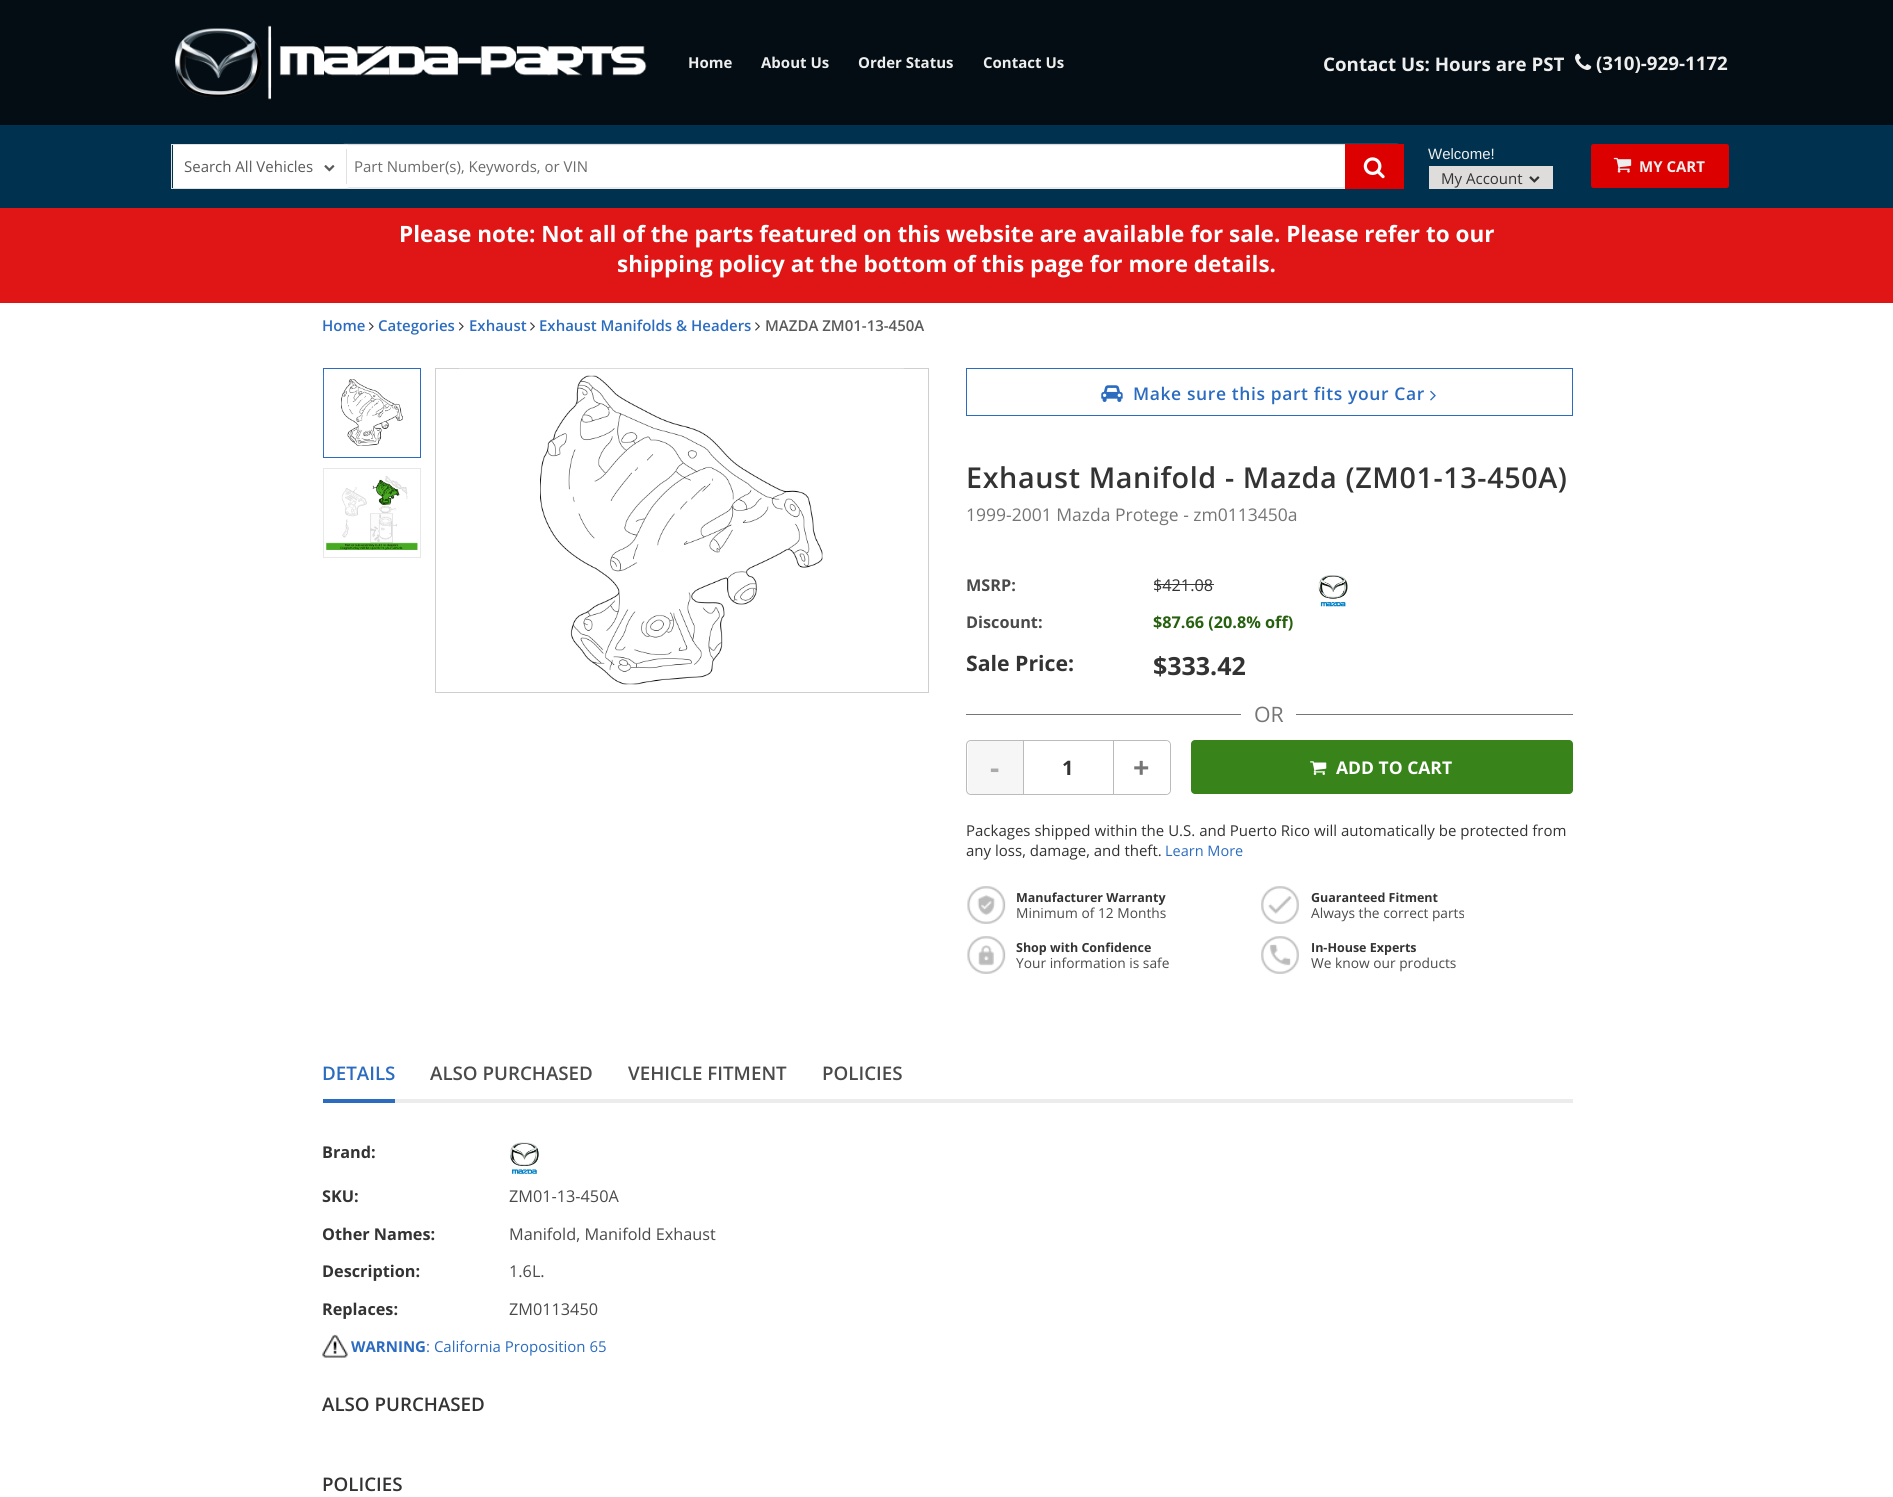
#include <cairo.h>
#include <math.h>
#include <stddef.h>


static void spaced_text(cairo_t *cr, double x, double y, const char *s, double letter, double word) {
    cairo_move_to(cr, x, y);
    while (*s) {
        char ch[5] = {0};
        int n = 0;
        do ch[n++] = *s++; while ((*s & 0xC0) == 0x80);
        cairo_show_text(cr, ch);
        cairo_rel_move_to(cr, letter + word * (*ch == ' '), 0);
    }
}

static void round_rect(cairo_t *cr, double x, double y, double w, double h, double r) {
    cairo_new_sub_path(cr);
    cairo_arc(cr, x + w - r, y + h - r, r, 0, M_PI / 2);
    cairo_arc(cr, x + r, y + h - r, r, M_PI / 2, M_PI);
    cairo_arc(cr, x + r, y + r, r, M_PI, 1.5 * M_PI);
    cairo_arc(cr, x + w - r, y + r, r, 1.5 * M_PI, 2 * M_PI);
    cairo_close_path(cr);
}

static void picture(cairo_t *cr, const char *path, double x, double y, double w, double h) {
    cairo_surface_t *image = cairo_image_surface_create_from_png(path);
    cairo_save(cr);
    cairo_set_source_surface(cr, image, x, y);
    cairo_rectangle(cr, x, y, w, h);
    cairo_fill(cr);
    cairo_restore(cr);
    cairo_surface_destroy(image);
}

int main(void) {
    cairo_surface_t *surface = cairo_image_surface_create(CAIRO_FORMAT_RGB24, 1893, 1497);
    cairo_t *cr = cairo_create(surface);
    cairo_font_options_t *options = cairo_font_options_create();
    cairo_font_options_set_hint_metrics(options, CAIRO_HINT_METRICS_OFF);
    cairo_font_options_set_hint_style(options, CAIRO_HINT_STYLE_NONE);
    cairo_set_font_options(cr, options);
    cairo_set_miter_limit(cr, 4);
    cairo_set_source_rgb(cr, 1, 1, 1);
    cairo_paint(cr);
    cairo_set_source_rgb(cr, 0.012, 0.051, 0.075);
    cairo_rectangle(cr, 0, 0, 1893, 125);
    cairo_fill(cr);
    picture(cr, "img1.png", 175, 25, 472, 75);
    cairo_select_font_face(cr, "Open Sans", CAIRO_FONT_SLANT_NORMAL, CAIRO_FONT_WEIGHT_BOLD);
    cairo_set_font_size(cr, 15);
    cairo_set_source_rgb(cr, 0.933, 0.933, 0.933);
    cairo_move_to(cr, 688, 68);
    cairo_show_text(cr, "Home");
    cairo_move_to(cr, 761, 68);
    cairo_show_text(cr, "About Us");
    cairo_move_to(cr, 858, 68);
    cairo_show_text(cr, "Order Status");
    cairo_move_to(cr, 983, 68);
    cairo_show_text(cr, "Contact Us");
    cairo_set_font_size(cr, 18.75);
    cairo_move_to(cr, 1323, 71);
    cairo_show_text(cr, "Contact Us: Hours are PST");
    picture(cr, "img2.png", 1575, 53, 17, 17);
    cairo_move_to(cr, 1596, 70);
    cairo_show_text(cr, "(310)-929-1172");
    cairo_set_source_rgb(cr, 0, 0.196, 0.31);
    cairo_rectangle(cr, 0, 125, 1893, 83);
    cairo_fill(cr);
    cairo_set_source_rgb(cr, 1, 1, 1);
    cairo_rectangle(cr, 348, 145, 997, 44);
    cairo_fill(cr);
    cairo_new_path(cr);
    cairo_move_to(cr, 341.5, 145.5);
    cairo_line_to(cr, 344, 144.5);
    cairo_line_to(cr, 1397.5, 144.5);
    cairo_curve_to(cr, 1402, 144.5, 1400.5, 151.5, 1400.5, 154);
    cairo_line_to(cr, 1400.5, 185);
    cairo_curve_to(cr, 1400.5, 186.5, 1399, 188, 1397.5, 188);
    cairo_line_to(cr, 344, 188);
    cairo_line_to(cr, 341.5, 187);
    cairo_set_source_rgb(cr, 0.855, 0.855, 0.855);
    cairo_set_line_width(cr, 1.2);
    cairo_stroke(cr);
    cairo_set_source_rgb(cr, 1, 1, 1);
    cairo_rectangle(cr, 173, 145, 175, 43);
    cairo_fill(cr);
    cairo_set_source_rgb(cr, 0.882, 0.882, 0.882);
    cairo_rectangle(cr, 171, 144, 177, 1);
    cairo_fill(cr);
    cairo_rectangle(cr, 171, 188, 177, 1);
    cairo_fill(cr);
    cairo_rectangle(cr, 171, 144, 1, 45);
    cairo_fill(cr);
    cairo_select_font_face(cr, "Open Sans", CAIRO_FONT_SLANT_NORMAL, CAIRO_FONT_WEIGHT_NORMAL);
    cairo_set_font_size(cr, 15);
    cairo_set_source_rgb(cr, 0.353, 0.353, 0.353);
    cairo_move_to(cr, 184, 172);
    cairo_show_text(cr, "Search All Vehicles");
    picture(cr, "img3.png", 324, 165, 11, 7);
    cairo_set_source_rgb(cr, 0.882, 0.882, 0.882);
    cairo_rectangle(cr, 346, 149, 1, 35);
    cairo_fill(cr);
    cairo_set_source_rgb(cr, 0.42, 0.42, 0.42);
    cairo_move_to(cr, 354, 172);
    cairo_show_text(cr, "Part Number(s), Keywords, or VIN");
    cairo_set_source_rgb(cr, 0.867, 0, 0);
    cairo_rectangle(cr, 1345, 144, 59, 45);
    cairo_fill(cr);
    picture(cr, "img4.png", 1363, 157, 22, 22);
    cairo_select_font_face(cr, "Liberation Sans", CAIRO_FONT_SLANT_NORMAL, CAIRO_FONT_WEIGHT_NORMAL);
    cairo_set_source_rgb(cr, 0.933, 0.933, 0.933);
    cairo_move_to(cr, 1428, 159);
    cairo_show_text(cr, "Welcome!");
    cairo_set_source_rgb(cr, 0.871, 0.867, 0.863);
    cairo_rectangle(cr, 1429, 166, 124, 23);
    cairo_fill(cr);
    cairo_select_font_face(cr, "Open Sans", CAIRO_FONT_SLANT_NORMAL, CAIRO_FONT_WEIGHT_NORMAL);
    cairo_set_source_rgb(cr, 0.2, 0.2, 0.2);
    cairo_move_to(cr, 1441, 184);
    cairo_show_text(cr, "My Account");
    picture(cr, "img5.png", 1529, 176, 11, 7);
    cairo_set_source_rgb(cr, 0.867, 0, 0);
    round_rect(cr, 1591, 144, 138, 44, 2.5);
    cairo_fill(cr);
    picture(cr, "img6.png", 1613, 157, 19, 16);
    cairo_select_font_face(cr, "Open Sans", CAIRO_FONT_SLANT_NORMAL, CAIRO_FONT_WEIGHT_BOLD);
    cairo_set_source_rgb(cr, 0.933, 0.933, 0.933);
    cairo_move_to(cr, 1639, 172);
    cairo_show_text(cr, "MY CART");
    cairo_set_source_rgb(cr, 0.878, 0.086, 0.086);
    cairo_rectangle(cr, 0, 208, 1893, 95);
    cairo_fill(cr);
    cairo_set_font_size(cr, 22.5);
    cairo_set_source_rgb(cr, 1, 1, 1);
    cairo_move_to(cr, 399, 242);
    cairo_show_text(cr, "Please note: Not all of the parts featured on this website are available for sale. Please refer to our");
    cairo_move_to(cr, 617, 272);
    cairo_show_text(cr, "shipping policy at the bottom of this page for more details.");
    cairo_select_font_face(cr, "Open Sans SemiBold", CAIRO_FONT_SLANT_NORMAL, CAIRO_FONT_WEIGHT_NORMAL);
    cairo_set_font_size(cr, 15);
    cairo_set_source_rgb(cr, 0.169, 0.424, 0.753);
    cairo_move_to(cr, 322, 331);
    cairo_show_text(cr, "Home");
    picture(cr, "img7.png", 368, 322, 6, 9);
    cairo_move_to(cr, 378, 331);
    cairo_show_text(cr, "Categories");
    picture(cr, "img7.png", 458, 322, 6, 9);
    cairo_move_to(cr, 469, 331);
    cairo_show_text(cr, "Exhaust");
    picture(cr, "img8.png", 530, 322, 5, 9);
    cairo_move_to(cr, 539, 331);
    cairo_show_text(cr, "Exhaust Manifolds & Headers");
    picture(cr, "img8.png", 755, 322, 5, 9);
    cairo_set_source_rgb(cr, 0.353, 0.353, 0.353);
    cairo_move_to(cr, 765, 331);
    cairo_show_text(cr, "MAZDA ZM01-13-450A");
    cairo_rectangle(cr, 323.5, 368.5, 97, 89);
    cairo_set_source_rgb(cr, 0.169, 0.424, 0.753);
    cairo_set_line_width(cr, 1);
    cairo_stroke(cr);
    picture(cr, "img9.png", 323, 372, 80, 81);
    cairo_rectangle(cr, 323.5, 468.5, 97, 89);
    cairo_set_source_rgb(cr, 0.91, 0.91, 0.91);
    cairo_stroke(cr);
    picture(cr, "img10.png", 326, 476, 92, 74);
    cairo_rectangle(cr, 435.5, 368.5, 493, 324);
    cairo_set_source_rgb(cr, 0.812, 0.812, 0.812);
    cairo_stroke(cr);
    picture(cr, "img11.png", 459, 368, 445, 317);
    cairo_rectangle(cr, 966.5, 368.5, 606, 47);
    cairo_set_source_rgb(cr, 0.169, 0.424, 0.753);
    cairo_stroke(cr);
    picture(cr, "img12.png", 1101, 385, 22, 17);
    cairo_set_font_size(cr, 17.5);
    spaced_text(cr, 1133, 400, "Make sure this part fits your Car", 0.6, 0);
    picture(cr, "img13.png", 1430, 390, 6, 11);
    cairo_set_font_size(cr, 28.75);
    cairo_set_source_rgb(cr, 0.2, 0.2, 0.2);
    spaced_text(cr, 966, 488, "Exhaust Manifold - Mazda (ZM01-13-450A)", 0.6, 0);
    cairo_select_font_face(cr, "Open Sans", CAIRO_FONT_SLANT_NORMAL, CAIRO_FONT_WEIGHT_NORMAL);
    cairo_set_font_size(cr, 17.5);
    cairo_set_source_rgb(cr, 0.459, 0.459, 0.459);
    cairo_move_to(cr, 966, 521);
    cairo_show_text(cr, "1999-2001 Mazda Protege - zm0113450a");
    cairo_select_font_face(cr, "Open Sans", CAIRO_FONT_SLANT_NORMAL, CAIRO_FONT_WEIGHT_BOLD);
    cairo_set_font_size(cr, 16.25);
    cairo_set_source_rgb(cr, 0.29, 0.29, 0.29);
    cairo_move_to(cr, 966, 591);
    cairo_show_text(cr, "MSRP:");
    cairo_select_font_face(cr, "Open Sans", CAIRO_FONT_SLANT_NORMAL, CAIRO_FONT_WEIGHT_NORMAL);
    cairo_set_source_rgb(cr, 0.2, 0.2, 0.2);
    cairo_move_to(cr, 1153, 591);
    cairo_show_text(cr, "$421.08");
    cairo_set_source_rgb(cr, 0.22, 0.22, 0.22);
    cairo_rectangle(cr, 1154, 584, 60, 1);
    cairo_fill(cr);
    cairo_select_font_face(cr, "Open Sans", CAIRO_FONT_SLANT_NORMAL, CAIRO_FONT_WEIGHT_BOLD);
    cairo_set_source_rgb(cr, 0.29, 0.29, 0.29);
    cairo_move_to(cr, 966, 628);
    cairo_show_text(cr, "Discount:");
    cairo_set_source_rgb(cr, 0.153, 0.376, 0.059);
    cairo_move_to(cr, 1153, 628);
    cairo_show_text(cr, "$87.66 (20.8% off)");
    cairo_set_font_size(cr, 21.25);
    cairo_set_source_rgb(cr, 0.2, 0.2, 0.2);
    cairo_move_to(cr, 966, 671);
    cairo_show_text(cr, "Sale Price:");
    cairo_set_font_size(cr, 25);
    cairo_move_to(cr, 1153, 675);
    cairo_show_text(cr, "$333.42");
    picture(cr, "img14.png", 1318, 575, 30, 32);
    cairo_set_source_rgb(cr, 0.463, 0.463, 0.463);
    cairo_rectangle(cr, 966, 714, 607, 1);
    cairo_fill(cr);
    cairo_set_source_rgb(cr, 1, 1, 1);
    cairo_rectangle(cr, 1241, 714, 55, 1);
    cairo_fill(cr);
    cairo_select_font_face(cr, "Open Sans", CAIRO_FONT_SLANT_NORMAL, CAIRO_FONT_WEIGHT_NORMAL);
    cairo_set_font_size(cr, 21.25);
    cairo_set_source_rgb(cr, 0.459, 0.459, 0.459);
    cairo_move_to(cr, 1254, 722);
    cairo_show_text(cr, "OR");
    round_rect(cr, 966.5, 740.5, 204, 54, 4.5);
    cairo_set_source_rgb(cr, 0.737, 0.733, 0.733);
    cairo_stroke(cr);
    cairo_set_source_rgb(cr, 0.961, 0.961, 0.961);
    cairo_new_path(cr);
    cairo_move_to(cr, 972, 741);
    cairo_line_to(cr, 1024, 741);
    cairo_line_to(cr, 1024, 794);
    cairo_line_to(cr, 972, 794);
    cairo_curve_to(cr, 970, 794, 968, 792, 968, 790);
    cairo_line_to(cr, 968, 745);
    cairo_curve_to(cr, 968, 743, 970, 741, 972, 741);
    cairo_close_path(cr);
    cairo_fill(cr);
    cairo_set_source_rgb(cr, 0.737, 0.733, 0.733);
    cairo_rectangle(cr, 1023, 741, 1, 53);
    cairo_fill(cr);
    cairo_select_font_face(cr, "Open Sans", CAIRO_FONT_SLANT_NORMAL, CAIRO_FONT_WEIGHT_BOLD);
    cairo_set_font_size(cr, 28.75);
    cairo_set_source_rgb(cr, 0.667, 0.667, 0.667);
    cairo_move_to(cr, 990, 778);
    cairo_show_text(cr, "-");
    cairo_set_font_size(cr, 20);
    cairo_set_source_rgb(cr, 0.2, 0.2, 0.2);
    cairo_move_to(cr, 1062, 775);
    cairo_show_text(cr, "1");
    cairo_set_source_rgb(cr, 1, 1, 1);
    cairo_new_path(cr);
    cairo_move_to(cr, 1113, 741);
    cairo_line_to(cr, 1166, 741);
    cairo_curve_to(cr, 1168, 741, 1170, 743, 1170, 745);
    cairo_line_to(cr, 1170, 790);
    cairo_curve_to(cr, 1170, 792, 1168, 794, 1166, 794);
    cairo_line_to(cr, 1113, 794);
    cairo_close_path(cr);
    cairo_fill(cr);
    cairo_set_source_rgb(cr, 0.737, 0.733, 0.733);
    cairo_rectangle(cr, 1113, 741, 1, 53);
    cairo_fill(cr);
    cairo_set_font_size(cr, 28.75);
    cairo_set_source_rgb(cr, 0.459, 0.459, 0.459);
    cairo_move_to(cr, 1133, 778);
    cairo_show_text(cr, "+");
    cairo_set_source_rgb(cr, 0.22, 0.518, 0.102);
    round_rect(cr, 1191, 740, 382, 54, 4);
    cairo_fill(cr);
    picture(cr, "img15.png", 1310, 761, 17, 14);
    cairo_set_font_size(cr, 17.5);
    cairo_set_source_rgb(cr, 1, 1, 1);
    cairo_move_to(cr, 1336, 774);
    cairo_show_text(cr, "ADD TO CART");
    cairo_select_font_face(cr, "Open Sans", CAIRO_FONT_SLANT_NORMAL, CAIRO_FONT_WEIGHT_NORMAL);
    cairo_set_font_size(cr, 15);
    cairo_set_source_rgb(cr, 0.2, 0.2, 0.2);
    cairo_move_to(cr, 966, 836);
    cairo_show_text(cr, "Packages shipped within the U.S. and Puerto Rico will automatically be protected from");
    cairo_move_to(cr, 966, 856);
    cairo_show_text(cr, "any loss, damage, and theft.");
    cairo_set_font_size(cr, 14.5);
    cairo_set_source_rgb(cr, 0.169, 0.424, 0.753);
    cairo_move_to(cr, 1165, 856);
    cairo_show_text(cr, "Learn More");
    picture(cr, "img16.png", 967, 886, 39, 38);
    cairo_select_font_face(cr, "Open Sans", CAIRO_FONT_SLANT_NORMAL, CAIRO_FONT_WEIGHT_BOLD);
    cairo_set_font_size(cr, 12.5);
    cairo_set_source_rgb(cr, 0.2, 0.2, 0.2);
    cairo_move_to(cr, 1016, 902);
    cairo_show_text(cr, "Manufacturer Warranty");
    cairo_select_font_face(cr, "Open Sans", CAIRO_FONT_SLANT_NORMAL, CAIRO_FONT_WEIGHT_NORMAL);
    cairo_set_font_size(cr, 13.75);
    cairo_set_source_rgb(cr, 0.29, 0.29, 0.29);
    cairo_move_to(cr, 1016, 918);
    cairo_show_text(cr, "Minimum of 12 Months");
    picture(cr, "img17.png", 1261, 886, 38, 38);
    cairo_select_font_face(cr, "Open Sans", CAIRO_FONT_SLANT_NORMAL, CAIRO_FONT_WEIGHT_BOLD);
    cairo_set_font_size(cr, 12.5);
    cairo_set_source_rgb(cr, 0.2, 0.2, 0.2);
    cairo_move_to(cr, 1311, 902);
    cairo_show_text(cr, "Guaranteed Fitment");
    cairo_select_font_face(cr, "Open Sans", CAIRO_FONT_SLANT_NORMAL, CAIRO_FONT_WEIGHT_NORMAL);
    cairo_set_font_size(cr, 13.75);
    cairo_set_source_rgb(cr, 0.29, 0.29, 0.29);
    cairo_move_to(cr, 1311, 918);
    cairo_show_text(cr, "Always the correct parts");
    picture(cr, "img18.png", 967, 936, 39, 38);
    cairo_select_font_face(cr, "Open Sans", CAIRO_FONT_SLANT_NORMAL, CAIRO_FONT_WEIGHT_BOLD);
    cairo_set_font_size(cr, 12.5);
    cairo_set_source_rgb(cr, 0.2, 0.2, 0.2);
    cairo_move_to(cr, 1016, 952);
    cairo_show_text(cr, "Shop with Confidence");
    cairo_select_font_face(cr, "Open Sans", CAIRO_FONT_SLANT_NORMAL, CAIRO_FONT_WEIGHT_NORMAL);
    cairo_set_font_size(cr, 13.75);
    cairo_set_source_rgb(cr, 0.29, 0.29, 0.29);
    cairo_move_to(cr, 1016, 968);
    cairo_show_text(cr, "Your information is safe");
    picture(cr, "img19.png", 1261, 936, 38, 38);
    cairo_select_font_face(cr, "Open Sans", CAIRO_FONT_SLANT_NORMAL, CAIRO_FONT_WEIGHT_BOLD);
    cairo_set_font_size(cr, 12.5);
    cairo_set_source_rgb(cr, 0.2, 0.2, 0.2);
    cairo_move_to(cr, 1311, 952);
    cairo_show_text(cr, "In-House Experts");
    cairo_select_font_face(cr, "Open Sans", CAIRO_FONT_SLANT_NORMAL, CAIRO_FONT_WEIGHT_NORMAL);
    cairo_set_font_size(cr, 13.75);
    cairo_set_source_rgb(cr, 0.29, 0.29, 0.29);
    cairo_move_to(cr, 1311, 968);
    cairo_show_text(cr, "We know our products");
    cairo_set_source_rgb(cr, 0.922, 0.922, 0.922);
    cairo_rectangle(cr, 395, 1099, 1178, 4);
    cairo_fill(cr);
    cairo_set_source_rgb(cr, 0.169, 0.424, 0.753);
    cairo_rectangle(cr, 323, 1099, 72, 4);
    cairo_fill(cr);
    cairo_select_font_face(cr, "Open Sans SemiBold", CAIRO_FONT_SLANT_NORMAL, CAIRO_FONT_WEIGHT_NORMAL);
    cairo_set_font_size(cr, 18.75);
    cairo_move_to(cr, 322, 1080);
    cairo_show_text(cr, "DETAILS");
    cairo_set_source_rgb(cr, 0.29, 0.29, 0.29);
    cairo_move_to(cr, 430, 1080);
    cairo_show_text(cr, "ALSO PURCHASED");
    cairo_move_to(cr, 628, 1080);
    cairo_show_text(cr, "VEHICLE FITMENT");
    cairo_move_to(cr, 822, 1080);
    cairo_show_text(cr, "POLICIES");
    cairo_select_font_face(cr, "Open Sans", CAIRO_FONT_SLANT_NORMAL, CAIRO_FONT_WEIGHT_BOLD);
    cairo_set_font_size(cr, 16.25);
    cairo_set_source_rgb(cr, 0.2, 0.2, 0.2);
    cairo_move_to(cr, 322, 1158);
    cairo_show_text(cr, "Brand:");
    picture(cr, "img20.png", 510, 1142, 29, 32);
    cairo_move_to(cr, 322, 1202);
    cairo_show_text(cr, "SKU:");
    cairo_select_font_face(cr, "Open Sans", CAIRO_FONT_SLANT_NORMAL, CAIRO_FONT_WEIGHT_NORMAL);
    cairo_set_source_rgb(cr, 0.29, 0.29, 0.29);
    cairo_move_to(cr, 509, 1202);
    cairo_show_text(cr, "ZM01-13-450A");
    cairo_select_font_face(cr, "Open Sans", CAIRO_FONT_SLANT_NORMAL, CAIRO_FONT_WEIGHT_BOLD);
    cairo_set_source_rgb(cr, 0.2, 0.2, 0.2);
    cairo_move_to(cr, 322, 1240);
    cairo_show_text(cr, "Other Names:");
    cairo_select_font_face(cr, "Open Sans", CAIRO_FONT_SLANT_NORMAL, CAIRO_FONT_WEIGHT_NORMAL);
    cairo_set_source_rgb(cr, 0.29, 0.29, 0.29);
    cairo_move_to(cr, 509, 1240);
    cairo_show_text(cr, "Manifold, Manifold Exhaust");
    cairo_select_font_face(cr, "Open Sans", CAIRO_FONT_SLANT_NORMAL, CAIRO_FONT_WEIGHT_BOLD);
    cairo_set_source_rgb(cr, 0.2, 0.2, 0.2);
    cairo_move_to(cr, 322, 1277);
    cairo_show_text(cr, "Description:");
    cairo_select_font_face(cr, "Open Sans", CAIRO_FONT_SLANT_NORMAL, CAIRO_FONT_WEIGHT_NORMAL);
    cairo_set_source_rgb(cr, 0.29, 0.29, 0.29);
    cairo_move_to(cr, 509, 1277);
    cairo_show_text(cr, "1.6L.");
    cairo_select_font_face(cr, "Open Sans", CAIRO_FONT_SLANT_NORMAL, CAIRO_FONT_WEIGHT_BOLD);
    cairo_set_source_rgb(cr, 0.2, 0.2, 0.2);
    cairo_move_to(cr, 322, 1315);
    cairo_show_text(cr, "Replaces:");
    cairo_select_font_face(cr, "Open Sans", CAIRO_FONT_SLANT_NORMAL, CAIRO_FONT_WEIGHT_NORMAL);
    cairo_set_source_rgb(cr, 0.29, 0.29, 0.29);
    cairo_move_to(cr, 509, 1315);
    cairo_show_text(cr, "ZM0113450");
    picture(cr, "img21.png", 322, 1334, 26, 24);
    cairo_select_font_face(cr, "Open Sans", CAIRO_FONT_SLANT_NORMAL, CAIRO_FONT_WEIGHT_BOLD);
    cairo_set_font_size(cr, 15);
    cairo_set_source_rgb(cr, 0.169, 0.424, 0.753);
    cairo_move_to(cr, 351, 1352);
    cairo_show_text(cr, "WARNING");
    cairo_select_font_face(cr, "Open Sans", CAIRO_FONT_SLANT_NORMAL, CAIRO_FONT_WEIGHT_NORMAL);
    cairo_move_to(cr, 426, 1352);
    cairo_show_text(cr, ": California Proposition 65");
    cairo_select_font_face(cr, "Open Sans SemiBold", CAIRO_FONT_SLANT_NORMAL, CAIRO_FONT_WEIGHT_NORMAL);
    cairo_set_font_size(cr, 18.75);
    cairo_set_source_rgb(cr, 0.2, 0.2, 0.2);
    cairo_move_to(cr, 322, 1411);
    cairo_show_text(cr, "ALSO PURCHASED");
    cairo_move_to(cr, 322, 1491);
    cairo_show_text(cr, "POLICIES");
    cairo_surface_write_to_png(surface, "page.png");
    cairo_font_options_destroy(options);
    cairo_destroy(cr);
    cairo_surface_destroy(surface);
    return 0;
}
